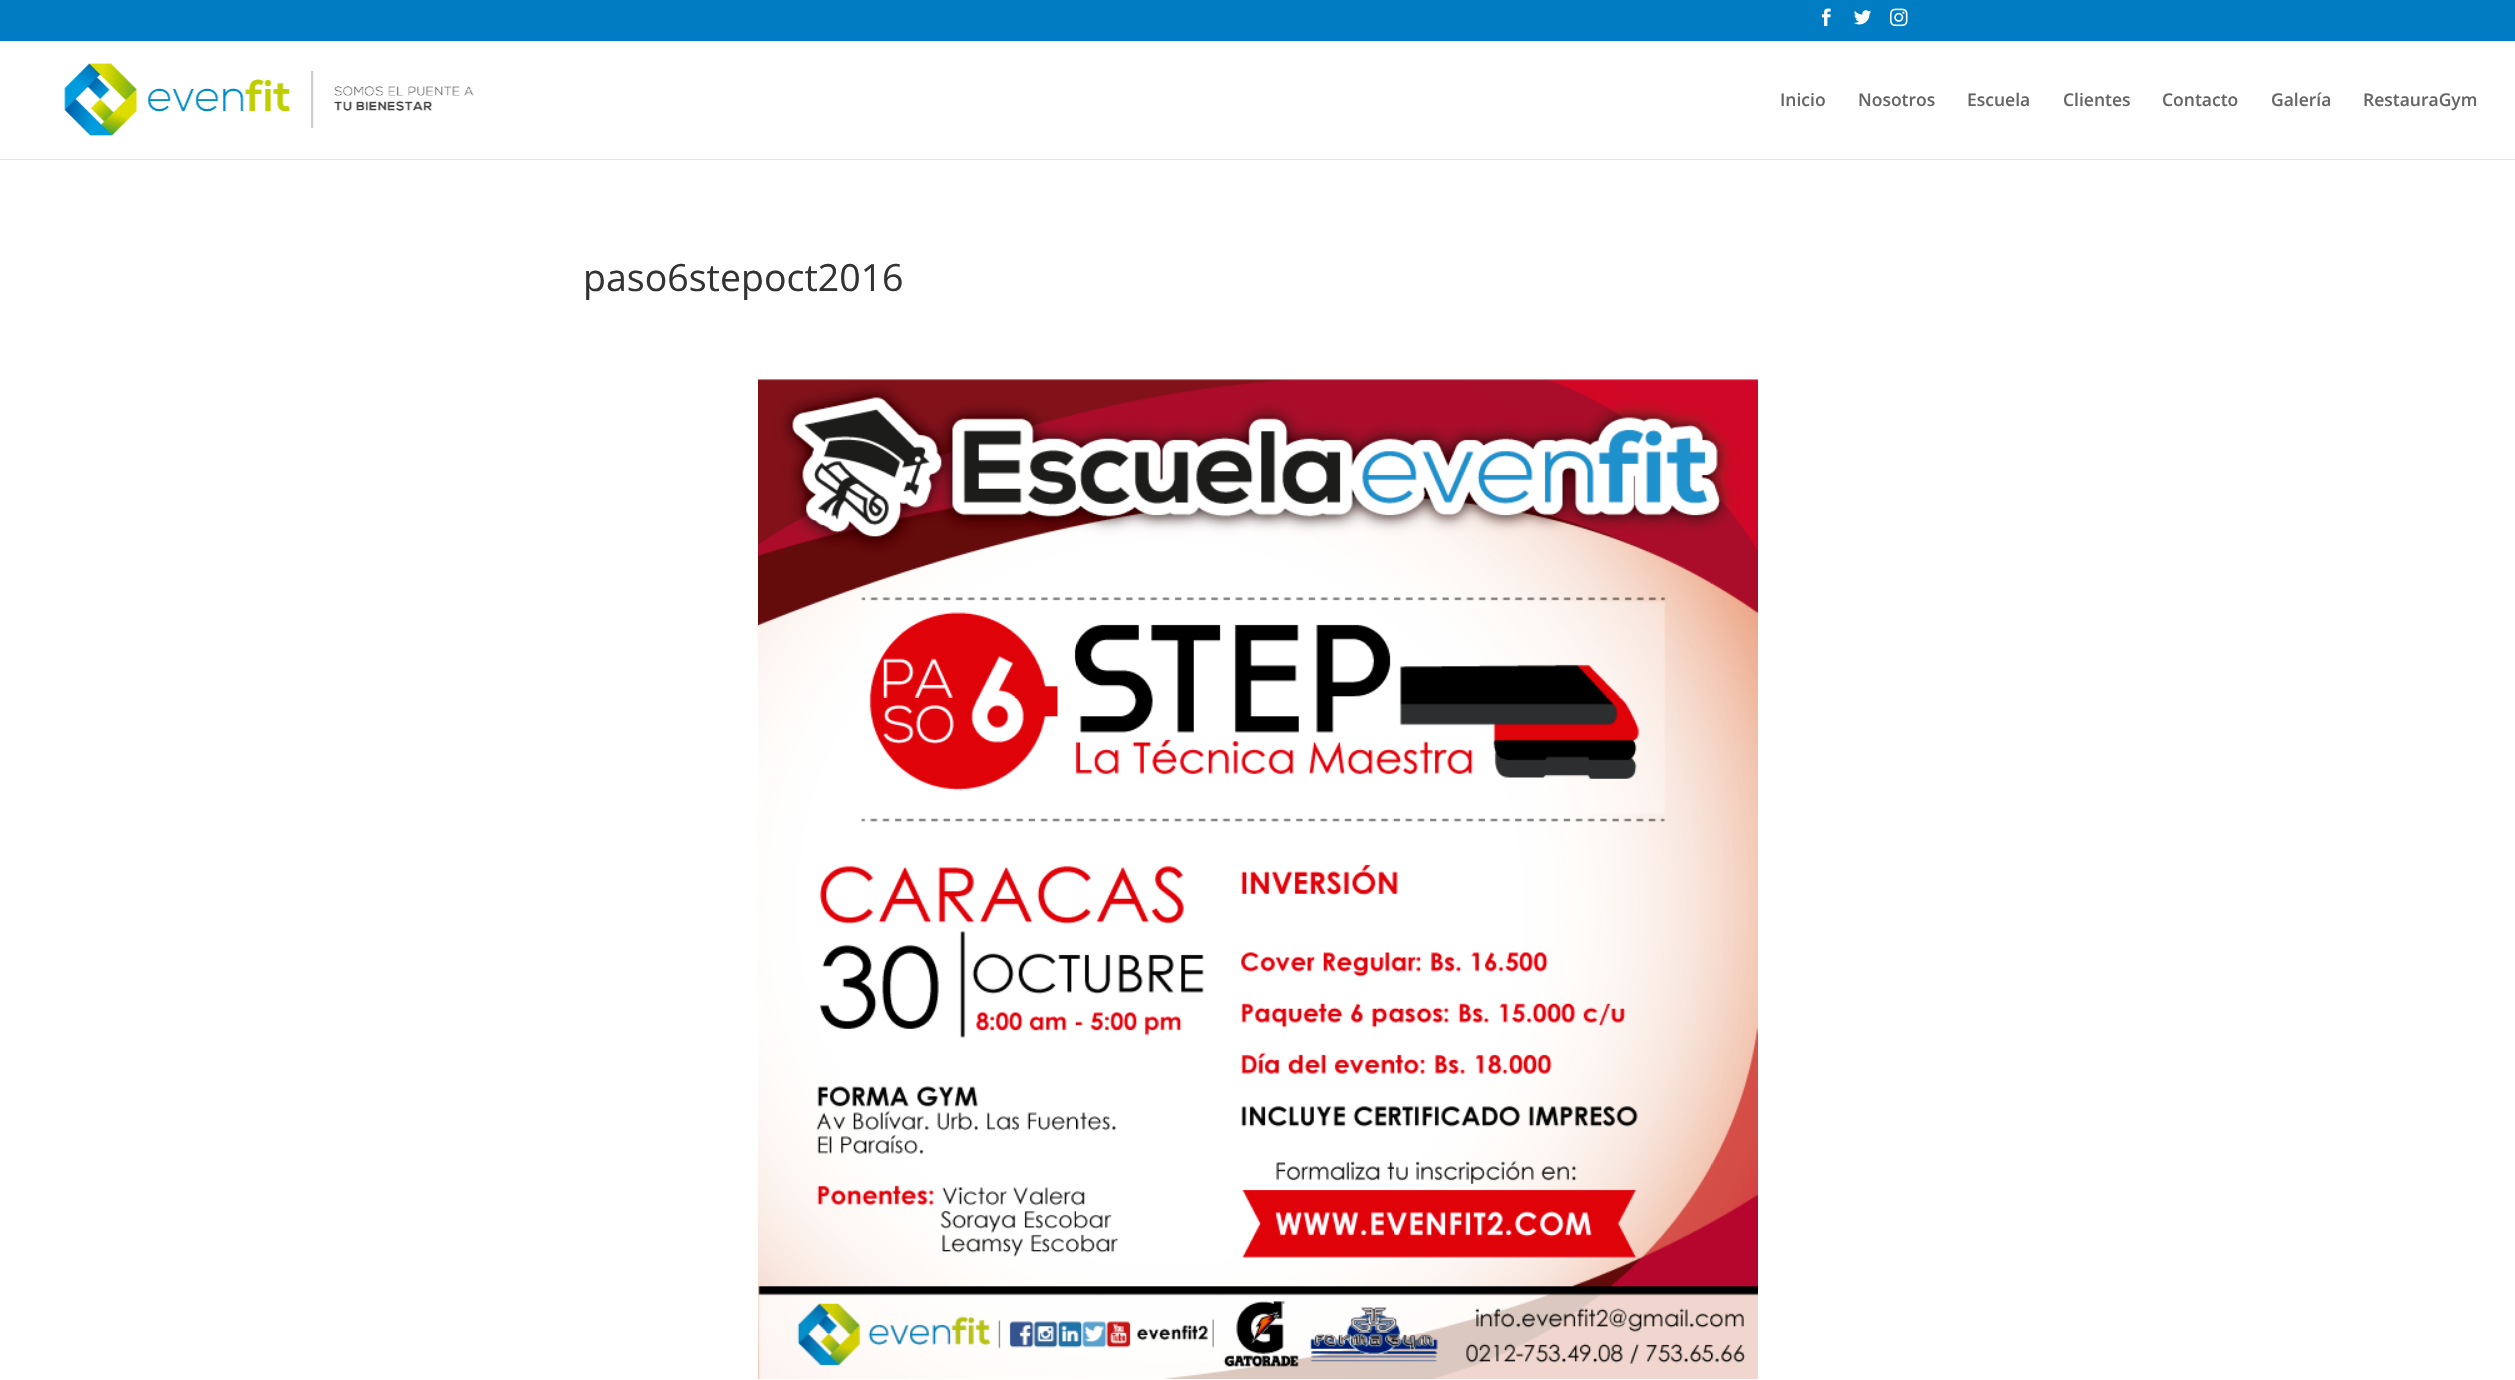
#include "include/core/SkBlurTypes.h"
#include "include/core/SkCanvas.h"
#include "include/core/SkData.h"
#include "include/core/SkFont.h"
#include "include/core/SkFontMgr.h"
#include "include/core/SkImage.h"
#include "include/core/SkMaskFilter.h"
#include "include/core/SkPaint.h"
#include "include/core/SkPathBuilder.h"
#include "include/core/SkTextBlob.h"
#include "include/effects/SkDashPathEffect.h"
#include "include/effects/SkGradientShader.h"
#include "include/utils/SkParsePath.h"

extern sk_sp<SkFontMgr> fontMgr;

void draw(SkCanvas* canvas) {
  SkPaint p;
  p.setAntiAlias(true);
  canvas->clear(SK_ColorWHITE);
  p.setColor(SkColorSetRGB(0, 125, 194));
  canvas->drawRect(SkRect::MakeLTRB(0, 0, 2515, 41), p);
  canvas->drawImageRect(SkImages::DeferredFromEncodedData(SkData::MakeFromFileName("images/1.png")), SkRect::MakeLTRB(1821, 8, 1831, 27), SkSamplingOptions());
  canvas->drawImageRect(SkImages::DeferredFromEncodedData(SkData::MakeFromFileName("images/2.png")), SkRect::MakeLTRB(1854, 10, 1871, 25), SkSamplingOptions());
  canvas->drawImageRect(SkImages::DeferredFromEncodedData(SkData::MakeFromFileName("images/3.png")), SkRect::MakeLTRB(1890, 8, 1908, 27), SkSamplingOptions());
  p.setColor(SkColorSetRGB(230, 230, 230));
  canvas->drawRect(SkRect::MakeLTRB(0, 159, 2515, 160), p);
  canvas->drawImageRect(SkImages::DeferredFromEncodedData(SkData::MakeFromFileName("images/4.png")), SkRect::MakeLTRB(64, 63, 474, 136), SkSamplingOptions());
  canvas->drawImageRect(SkImages::DeferredFromEncodedData(SkData::MakeFromFileName("images/5.png")), SkRect::MakeLTRB(758, 379, 1758, 1379), SkSamplingOptions());
  SkFont font1(fontMgr->matchFamilyStyle("Open Sans", SkFontStyle(600, SkFontStyle::kNormal_Width, SkFontStyle::kUpright_Slant)), 17.5f);
  font1.setSubpixel(true);
  p.setColor(SkColorSetRGB(102, 102, 102));
  canvas->drawString("Inicio", 1780, 106, font1, p);
  canvas->drawString("Nosotros", 1858, 106, font1, p);
  canvas->drawString("Escuela", 1967, 106, font1, p);
  canvas->drawString("Clientes", 2063, 106, font1, p);
  canvas->drawString("Contacto", 2162, 106, font1, p);
  canvas->drawString("Galería", 2271, 106, font1, p);
  canvas->drawString("RestauraGym", 2363, 106, font1, p);
  SkFont font2(fontMgr->matchFamilyStyle("Open Sans", SkFontStyle::Normal()), 37.5f);
  font2.setSubpixel(true);
  p.setColor(SkColorSetRGB(51, 51, 51));
  canvas->drawString("paso6stepoct2016", 583, 291, font2, p);
}
